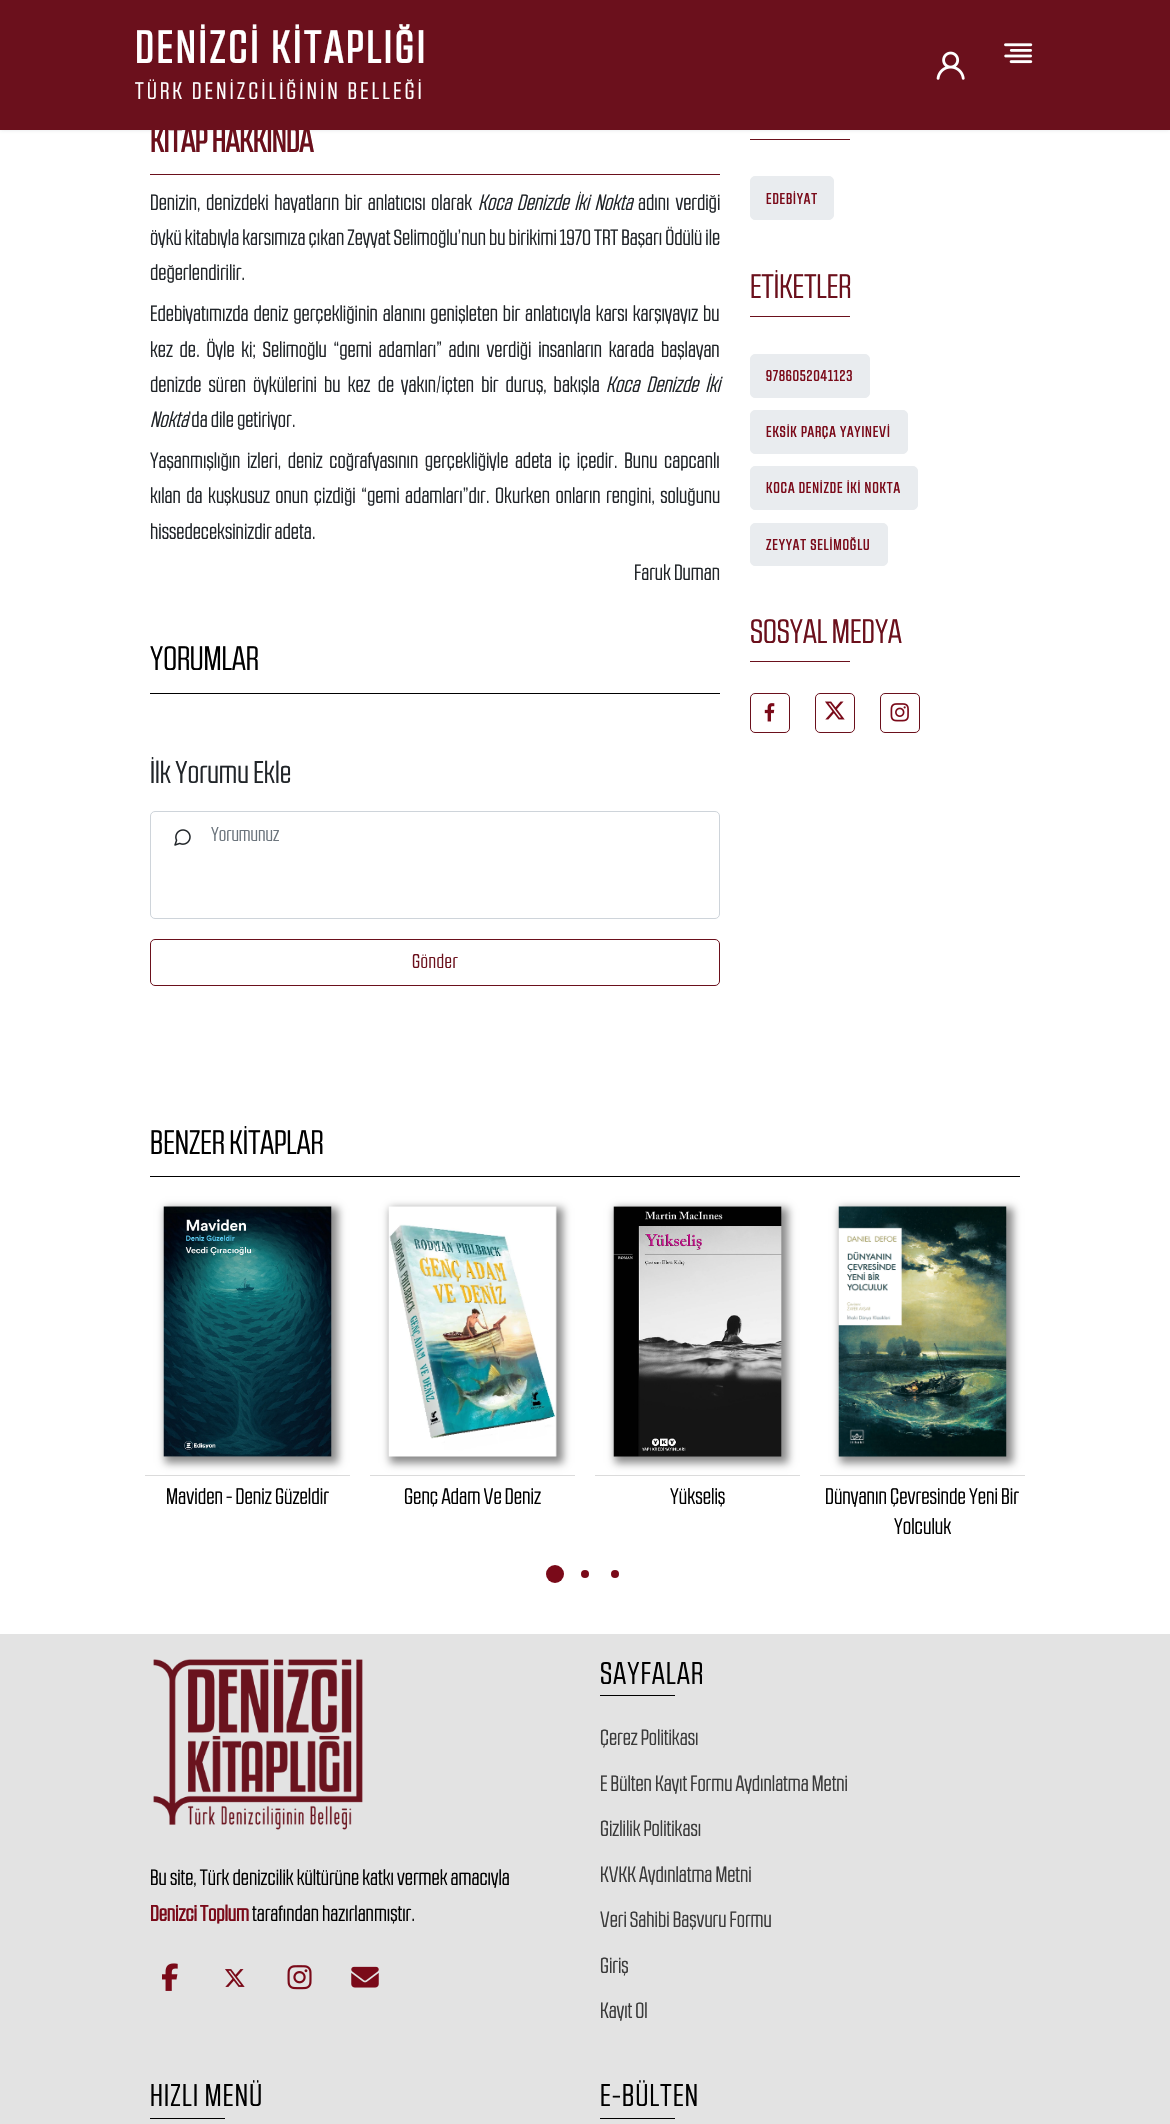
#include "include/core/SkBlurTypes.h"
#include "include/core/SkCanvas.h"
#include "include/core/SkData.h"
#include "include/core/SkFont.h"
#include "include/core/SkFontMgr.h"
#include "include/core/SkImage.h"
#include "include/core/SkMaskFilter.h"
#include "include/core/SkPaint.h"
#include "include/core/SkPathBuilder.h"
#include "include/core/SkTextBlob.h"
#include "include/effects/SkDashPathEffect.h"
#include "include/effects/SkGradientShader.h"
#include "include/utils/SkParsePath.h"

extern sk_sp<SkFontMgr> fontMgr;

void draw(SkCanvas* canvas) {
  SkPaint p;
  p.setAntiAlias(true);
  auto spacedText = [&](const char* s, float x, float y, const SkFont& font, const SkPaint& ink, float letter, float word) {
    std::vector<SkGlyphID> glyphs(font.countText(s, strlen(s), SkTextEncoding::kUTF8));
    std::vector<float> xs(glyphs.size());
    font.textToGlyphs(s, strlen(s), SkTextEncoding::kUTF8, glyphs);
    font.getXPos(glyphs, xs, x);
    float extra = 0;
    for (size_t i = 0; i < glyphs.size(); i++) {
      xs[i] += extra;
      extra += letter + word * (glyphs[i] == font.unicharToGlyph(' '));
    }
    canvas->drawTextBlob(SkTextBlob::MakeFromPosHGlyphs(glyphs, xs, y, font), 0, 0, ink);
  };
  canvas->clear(SK_ColorWHITE);
  p.setColor(SkColorSetARGB(38, 60, 72, 88));
  p.setMaskFilter(SkMaskFilter::MakeBlur(kNormal_SkBlurStyle, 2));
  canvas->drawRect(SkRect::MakeLTRB(0, 0, 1170, 130), p);
  p.setMaskFilter(nullptr);
  p.setColor(SkColorSetRGB(107, 16, 28));
  canvas->drawRect(SkRect::MakeLTRB(0, 0, 1170, 130), p);
  canvas->drawImageRect(SkImages::DeferredFromEncodedData(SkData::MakeFromFileName("images/1.png")), SkRect::MakeLTRB(936, 51, 965, 80), SkSamplingOptions());
  canvas->drawImageRect(SkImages::DeferredFromEncodedData(SkData::MakeFromFileName("images/2.png")), SkRect::MakeLTRB(1004, 43, 1033, 64), SkSamplingOptions());
  canvas->drawRect(SkRect::MakeLTRB(150, 174, 720, 175), p);
  p.setColor(SK_ColorBLACK);
  canvas->drawRect(SkRect::MakeLTRB(150, 693, 720, 694), p);
  p.setStyle(SkPaint::kStroke_Style);
  p.setStrokeWidth(1);
  p.setColor(SkColorSetRGB(206, 212, 218));
  canvas->drawRoundRect(SkRect::MakeLTRB(150.5f, 811.5f, 719.5f, 918.5f), 4.5f, 4.5f, p);
  canvas->drawImageRect(SkImages::DeferredFromEncodedData(SkData::MakeFromFileName("images/3.png")), SkRect::MakeLTRB(174, 829, 191, 846), SkSamplingOptions());
  p.setColor(SkColorSetRGB(107, 16, 28));
  canvas->drawRoundRect(SkRect::MakeLTRB(150.5f, 939.5f, 719.5f, 985.5f), 4.5f, 4.5f, p);
  p.setStyle(SkPaint::kFill_Style);
  canvas->drawRect(SkRect::MakeLTRB(750, 139, 850, 140), p);
  p.setColor(SkColorSetRGB(233, 236, 239));
  canvas->drawRoundRect(SkRect::MakeLTRB(750.5f, 176.5f, 833.5f, 219.5f), 4.5f, 4.5f, p);
  p.setStyle(SkPaint::kStroke_Style);
  canvas->drawRoundRect(SkRect::MakeLTRB(750.5f, 176.5f, 833.5f, 219.5f), 4.5f, 4.5f, p);
  p.setStyle(SkPaint::kFill_Style);
  p.setColor(SkColorSetRGB(107, 16, 28));
  canvas->drawRect(SkRect::MakeLTRB(750, 316, 850, 317), p);
  p.setColor(SkColorSetRGB(233, 236, 239));
  canvas->drawRoundRect(SkRect::MakeLTRB(750.5f, 354.5f, 869.5f, 397.5f), 4.5f, 4.5f, p);
  p.setStyle(SkPaint::kStroke_Style);
  canvas->drawRoundRect(SkRect::MakeLTRB(750.5f, 354.5f, 869.5f, 397.5f), 4.5f, 4.5f, p);
  p.setStyle(SkPaint::kFill_Style);
  canvas->drawRoundRect(SkRect::MakeLTRB(750.5f, 410.5f, 907.5f, 453.5f), 4.5f, 4.5f, p);
  p.setStyle(SkPaint::kStroke_Style);
  canvas->drawRoundRect(SkRect::MakeLTRB(750.5f, 410.5f, 907.5f, 453.5f), 4.5f, 4.5f, p);
  p.setStyle(SkPaint::kFill_Style);
  canvas->drawRoundRect(SkRect::MakeLTRB(750.5f, 466.5f, 917.5f, 509.5f), 4.5f, 4.5f, p);
  p.setStyle(SkPaint::kStroke_Style);
  canvas->drawRoundRect(SkRect::MakeLTRB(750.5f, 466.5f, 917.5f, 509.5f), 4.5f, 4.5f, p);
  p.setStyle(SkPaint::kFill_Style);
  canvas->drawRoundRect(SkRect::MakeLTRB(750.5f, 523.5f, 887.5f, 565.5f), 4.5f, 4.5f, p);
  p.setStyle(SkPaint::kStroke_Style);
  canvas->drawRoundRect(SkRect::MakeLTRB(750.5f, 523.5f, 887.5f, 565.5f), 4.5f, 4.5f, p);
  p.setStyle(SkPaint::kFill_Style);
  p.setColor(SkColorSetRGB(107, 16, 28));
  canvas->drawRect(SkRect::MakeLTRB(750, 661, 850, 662), p);
  p.setStyle(SkPaint::kStroke_Style);
  canvas->drawRoundRect(SkRect::MakeLTRB(750.5f, 693.5f, 789.5f, 732.5f), 4.5f, 4.5f, p);
  canvas->drawImageRect(SkImages::DeferredFromEncodedData(SkData::MakeFromFileName("images/4.png")), SkRect::MakeLTRB(764, 703, 775, 722), SkSamplingOptions());
  canvas->drawRoundRect(SkRect::MakeLTRB(815.5f, 693.5f, 854.5f, 732.5f), 4.5f, 4.5f, p);
  canvas->drawImageRect(SkImages::DeferredFromEncodedData(SkData::MakeFromFileName("images/5.png")), SkRect::MakeLTRB(825, 701, 845, 720), SkSamplingOptions());
  canvas->drawRoundRect(SkRect::MakeLTRB(880.5f, 693.5f, 919.5f, 732.5f), 4.5f, 4.5f, p);
  canvas->drawImageRect(SkImages::DeferredFromEncodedData(SkData::MakeFromFileName("images/6.png")), SkRect::MakeLTRB(890, 703, 909, 722), SkSamplingOptions());
  p.setStyle(SkPaint::kFill_Style);
  p.setColor(SK_ColorBLACK);
  canvas->drawRect(SkRect::MakeLTRB(150, 1176, 1020, 1177), p);
  p.setColor(SkColorSetRGB(138, 138, 138));
  p.setMaskFilter(SkMaskFilter::MakeBlur(kNormal_SkBlurStyle, 4));
  canvas->drawRect(SkRect::MakeLTRB(165, 1208, 338, 1463), p);
  p.setMaskFilter(nullptr);
  canvas->drawImageRect(SkImages::DeferredFromEncodedData(SkData::MakeFromFileName("images/7.png")), SkRect::MakeLTRB(163, 1206, 332, 1457), SkSamplingOptions());
  p.setColor(SkColorSetRGB(219, 219, 219));
  canvas->drawRect(SkRect::MakeLTRB(145, 1475, 350, 1476), p);
  p.setColor(SkColorSetRGB(138, 138, 138));
  p.setMaskFilter(SkMaskFilter::MakeBlur(kNormal_SkBlurStyle, 4));
  canvas->drawRect(SkRect::MakeLTRB(390, 1208, 563, 1463), p);
  p.setMaskFilter(nullptr);
  canvas->drawImageRect(SkImages::DeferredFromEncodedData(SkData::MakeFromFileName("images/8.png")), SkRect::MakeLTRB(388, 1206, 557, 1457), SkSamplingOptions());
  p.setColor(SkColorSetRGB(219, 219, 219));
  canvas->drawRect(SkRect::MakeLTRB(370, 1475, 575, 1476), p);
  p.setColor(SkColorSetRGB(138, 138, 138));
  p.setMaskFilter(SkMaskFilter::MakeBlur(kNormal_SkBlurStyle, 4));
  canvas->drawRect(SkRect::MakeLTRB(615, 1208, 788, 1463), p);
  p.setMaskFilter(nullptr);
  canvas->drawImageRect(SkImages::DeferredFromEncodedData(SkData::MakeFromFileName("images/9.png")), SkRect::MakeLTRB(613, 1206, 782, 1457), SkSamplingOptions());
  p.setColor(SkColorSetRGB(219, 219, 219));
  canvas->drawRect(SkRect::MakeLTRB(595, 1475, 800, 1476), p);
  p.setColor(SkColorSetRGB(138, 138, 138));
  p.setMaskFilter(SkMaskFilter::MakeBlur(kNormal_SkBlurStyle, 4));
  canvas->drawRect(SkRect::MakeLTRB(840, 1208, 1013, 1463), p);
  p.setMaskFilter(nullptr);
  canvas->drawImageRect(SkImages::DeferredFromEncodedData(SkData::MakeFromFileName("images/10.png")), SkRect::MakeLTRB(838, 1206, 1007, 1457), SkSamplingOptions());
  p.setColor(SkColorSetRGB(219, 219, 219));
  canvas->drawRect(SkRect::MakeLTRB(820, 1475, 1025, 1476), p);
  p.setColor(SkColorSetRGB(122, 10, 25));
  canvas->drawCircle(555, 1574, 9, p);
  canvas->drawCircle(585, 1574, 4, p);
  canvas->drawCircle(615, 1574, 4, p);
  p.setColor(SkColorSetRGB(227, 227, 227));
  canvas->drawRect(SkRect::MakeLTRB(0, 1634, 1170, 2124), p);
  canvas->drawImageRect(SkImages::DeferredFromEncodedData(SkData::MakeFromFileName("images/11.png")), SkRect::MakeLTRB(153, 1659, 363, 1830), SkSamplingOptions());
  canvas->drawImageRect(SkImages::DeferredFromEncodedData(SkData::MakeFromFileName("images/12.png")), SkRect::MakeLTRB(162, 1963, 178, 1991), SkSamplingOptions());
  canvas->drawImageRect(SkImages::DeferredFromEncodedData(SkData::MakeFromFileName("images/13.png")), SkRect::MakeLTRB(225, 1969, 245, 1987), SkSamplingOptions());
  canvas->drawImageRect(SkImages::DeferredFromEncodedData(SkData::MakeFromFileName("images/14.png")), SkRect::MakeLTRB(287, 1965, 312, 1990), SkSamplingOptions());
  canvas->drawImageRect(SkImages::DeferredFromEncodedData(SkData::MakeFromFileName("images/15.png")), SkRect::MakeLTRB(351, 1966, 379, 1988), SkSamplingOptions());
  p.setColor(SK_ColorBLACK);
  canvas->drawRect(SkRect::MakeLTRB(600, 1695, 675, 1696), p);
  canvas->drawRect(SkRect::MakeLTRB(150, 2118, 225, 2119), p);
  canvas->drawRect(SkRect::MakeLTRB(600, 2118, 675, 2119), p);
  SkFont font1(fontMgr->matchFamilyStyle("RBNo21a", SkFontStyle::Bold()), 45);
  font1.setSubpixel(true);
  p.setColor(SK_ColorWHITE);
  spacedText("DENİZCİ KİTAPLIĞI", 135, 63, font1, p, 3.75f, 0);
  SkFont font2(fontMgr->matchFamilyStyle("RBNo21a", SkFontStyle::Normal()), 23.75f);
  font2.setSubpixel(true);
  spacedText("TÜRK DENİZCİLİĞİNİN BELLEĞİ", 135, 99, font2, p, 3.4f, 0);
  SkFont font3(fontMgr->matchFamilyStyle("RBNo21a", SkFontStyle::Bold()), 33.75f);
  font3.setSubpixel(true);
  p.setColor(SkColorSetRGB(107, 16, 28));
  canvas->drawString("KİTAP HAKKINDA", 150, 152, font3, p);
  SkFont font4(fontMgr->matchFamilyStyle("RBNo21a", SkFontStyle::Normal()), 22);
  font4.setSubpixel(true);
  p.setColor(SkColorSetRGB(33, 37, 41));
  spacedText("Denizin, denizdeki hayatların bir anlatıcısı olarak", 150, 210, font4, p, 0, 2.5f);
  SkFont font5(fontMgr->matchFamilyStyle("RBNo21a", SkFontStyle::Italic()), 22);
  font5.setSubpixel(true);
  spacedText("Koca Denizde İki Nokta", 478, 210, font5, p, 0, 2.5f);
  spacedText("adını verdiği", 638, 210, font4, p, 0, 3);
  canvas->drawString("öykü kitabıyla karsımıza çıkan Zeyyat Selimoğlu’nun bu birikimi 1970 TRT Başarı Ödülü ile", 150, 245, font4, p);
  canvas->drawString("değerlendirilir.", 150, 280, font4, p);
  spacedText("Edebiyatımızda deniz gerçekliğinin alanını genişleten bir anlatıcıyla karsı karşıyayız bu", 150, 321, font4, p, 0, 1.75f);
  spacedText("kez de. Öyle ki; Selimoğlu “gemi adamları” adını verdiği insanların karada başlayan", 150, 357, font4, p, 0, 3.6f);
  spacedText("denizde süren öykülerini bu kez de yakın/içten bir duruş, bakışla", 150, 392, font4, p, 0, 4);
  spacedText("Koca Denizde İki", 606, 392, font5, p, 0, 4);
  canvas->drawString("Nokta", 150, 427, font5, p);
  canvas->drawString("’da dile getiriyor.", 188, 427, font4, p);
  spacedText("Yaşanmışlığın izleri, deniz coğrafyasının gerçekliğiyle adeta iç içedir. Bunu capcanlı", 150, 468, font4, p, 0, 3.5f);
  spacedText("kılan da kuşkusuz onun çizdiği “gemi adamları”dır. Okurken onların rengini, soluğunu", 150, 503, font4, p, 0, 2.4f);
  canvas->drawString("hissedeceksinizdir adeta.", 150, 539, font4, p);
  canvas->drawString("Faruk Duman", 634, 580, font4, p);
  SkFont font6(fontMgr->matchFamilyStyle("RBNo21a", SkFontStyle::Normal()), 33.75f);
  font6.setSubpixel(true);
  p.setColor(SK_ColorBLACK);
  canvas->drawString("YORUMLAR", 150, 670, font6, p);
  SkFont font7(fontMgr->matchFamilyStyle("RBNo21a", SkFontStyle::Normal()), 31.25f);
  font7.setSubpixel(true);
  p.setColor(SkColorSetRGB(33, 37, 41));
  canvas->drawString("İlk Yorumu Ekle", 150, 783, font7, p);
  SkFont font8(fontMgr->matchFamilyStyle("RBNo21a", SkFontStyle::Normal()), 20);
  font8.setSubpixel(true);
  p.setColor(SkColorSetRGB(108, 117, 125));
  canvas->drawString("Yorumunuz", 211, 841, font8, p);
  p.setColor(SkColorSetRGB(107, 16, 28));
  spacedText("Gönder", 412, 968, font8, p, 0.5f, 0);
  SkFont font9(fontMgr->matchFamilyStyle("RBNo21a", SkFontStyle::Bold()), 15);
  font9.setSubpixel(true);
  p.setColor(SkColorSetRGB(122, 10, 25));
  spacedText("EDEBİYAT", 766, 204, font9, p, 1.25f, 0);
  p.setColor(SkColorSetRGB(107, 16, 28));
  canvas->drawString("ETİKETLER", 750, 298, font6, p);
  p.setColor(SkColorSetRGB(122, 10, 25));
  spacedText("9786052041123", 766, 381, font9, p, 1.25f, 0);
  spacedText("EKSİK PARÇA YAYINEVİ", 766, 437, font9, p, 1.25f, 0);
  spacedText("KOCA DENİZDE İKİ NOKTA", 766, 493, font9, p, 1.25f, 0);
  spacedText("ZEYYAT SELİMOĞLU", 766, 550, font9, p, 1.25f, 0);
  p.setColor(SkColorSetRGB(107, 16, 28));
  canvas->drawString("SOSYAL MEDYA", 750, 643, font6, p);
  p.setColor(SK_ColorBLACK);
  canvas->drawString("BENZER KİTAPLAR", 150, 1154, font6, p);
  SkFont font10(fontMgr->matchFamilyStyle("RBNo21a", SkFontStyle::Normal()), 22.5f);
  font10.setSubpixel(true);
  canvas->drawString("Maviden - Deniz Güzeldir", 166, 1504, font10, p);
  canvas->drawString("Genç Adam Ve Deniz", 404, 1504, font10, p);
  canvas->drawString("Yükseliş", 670, 1504, font10, p);
  canvas->drawString("Dünyanın Çevresinde Yeni Bir", 825, 1504, font10, p);
  canvas->drawString("Yolculuk", 894, 1534, font10, p);
  canvas->drawString("Bu site, Türk denizcilik kültürüne katkı vermek amacıyla", 150, 1885, font4, p);
  SkFont font11(fontMgr->matchFamilyStyle("RBNo21a", SkFontStyle::Bold()), 22);
  font11.setSubpixel(true);
  p.setColor(SkColorSetRGB(122, 10, 25));
  canvas->drawString("Denizci Toplum", 150, 1921, font11, p);
  p.setColor(SK_ColorBLACK);
  canvas->drawString("tarafından hazırlanmıştır.", 252, 1921, font4, p);
  spacedText("SAYFALAR", 600, 1684, font7, p, 1.25f, 0);
  p.setColor(SkColorSetRGB(58, 58, 58));
  canvas->drawString("Çerez Politikası", 600, 1745, font4, p);
  canvas->drawString("E Bülten Kayıt Formu Aydınlatma Metni", 600, 1791, font4, p);
  canvas->drawString("Gizlilik Politikası", 600, 1836, font4, p);
  canvas->drawString("KVKK Aydınlatma Metni", 600, 1882, font4, p);
  canvas->drawString("Veri Sahibi Başvuru Formu", 600, 1927, font4, p);
  canvas->drawString("Giriş", 600, 1973, font4, p);
  canvas->drawString("Kayıt Ol", 600, 2018, font4, p);
  p.setColor(SK_ColorBLACK);
  spacedText("HIZLI MENÜ", 150, 2106, font7, p, 1.25f, 0);
  spacedText("E-BÜLTEN", 600, 2106, font7, p, 1.25f, 0);
}
